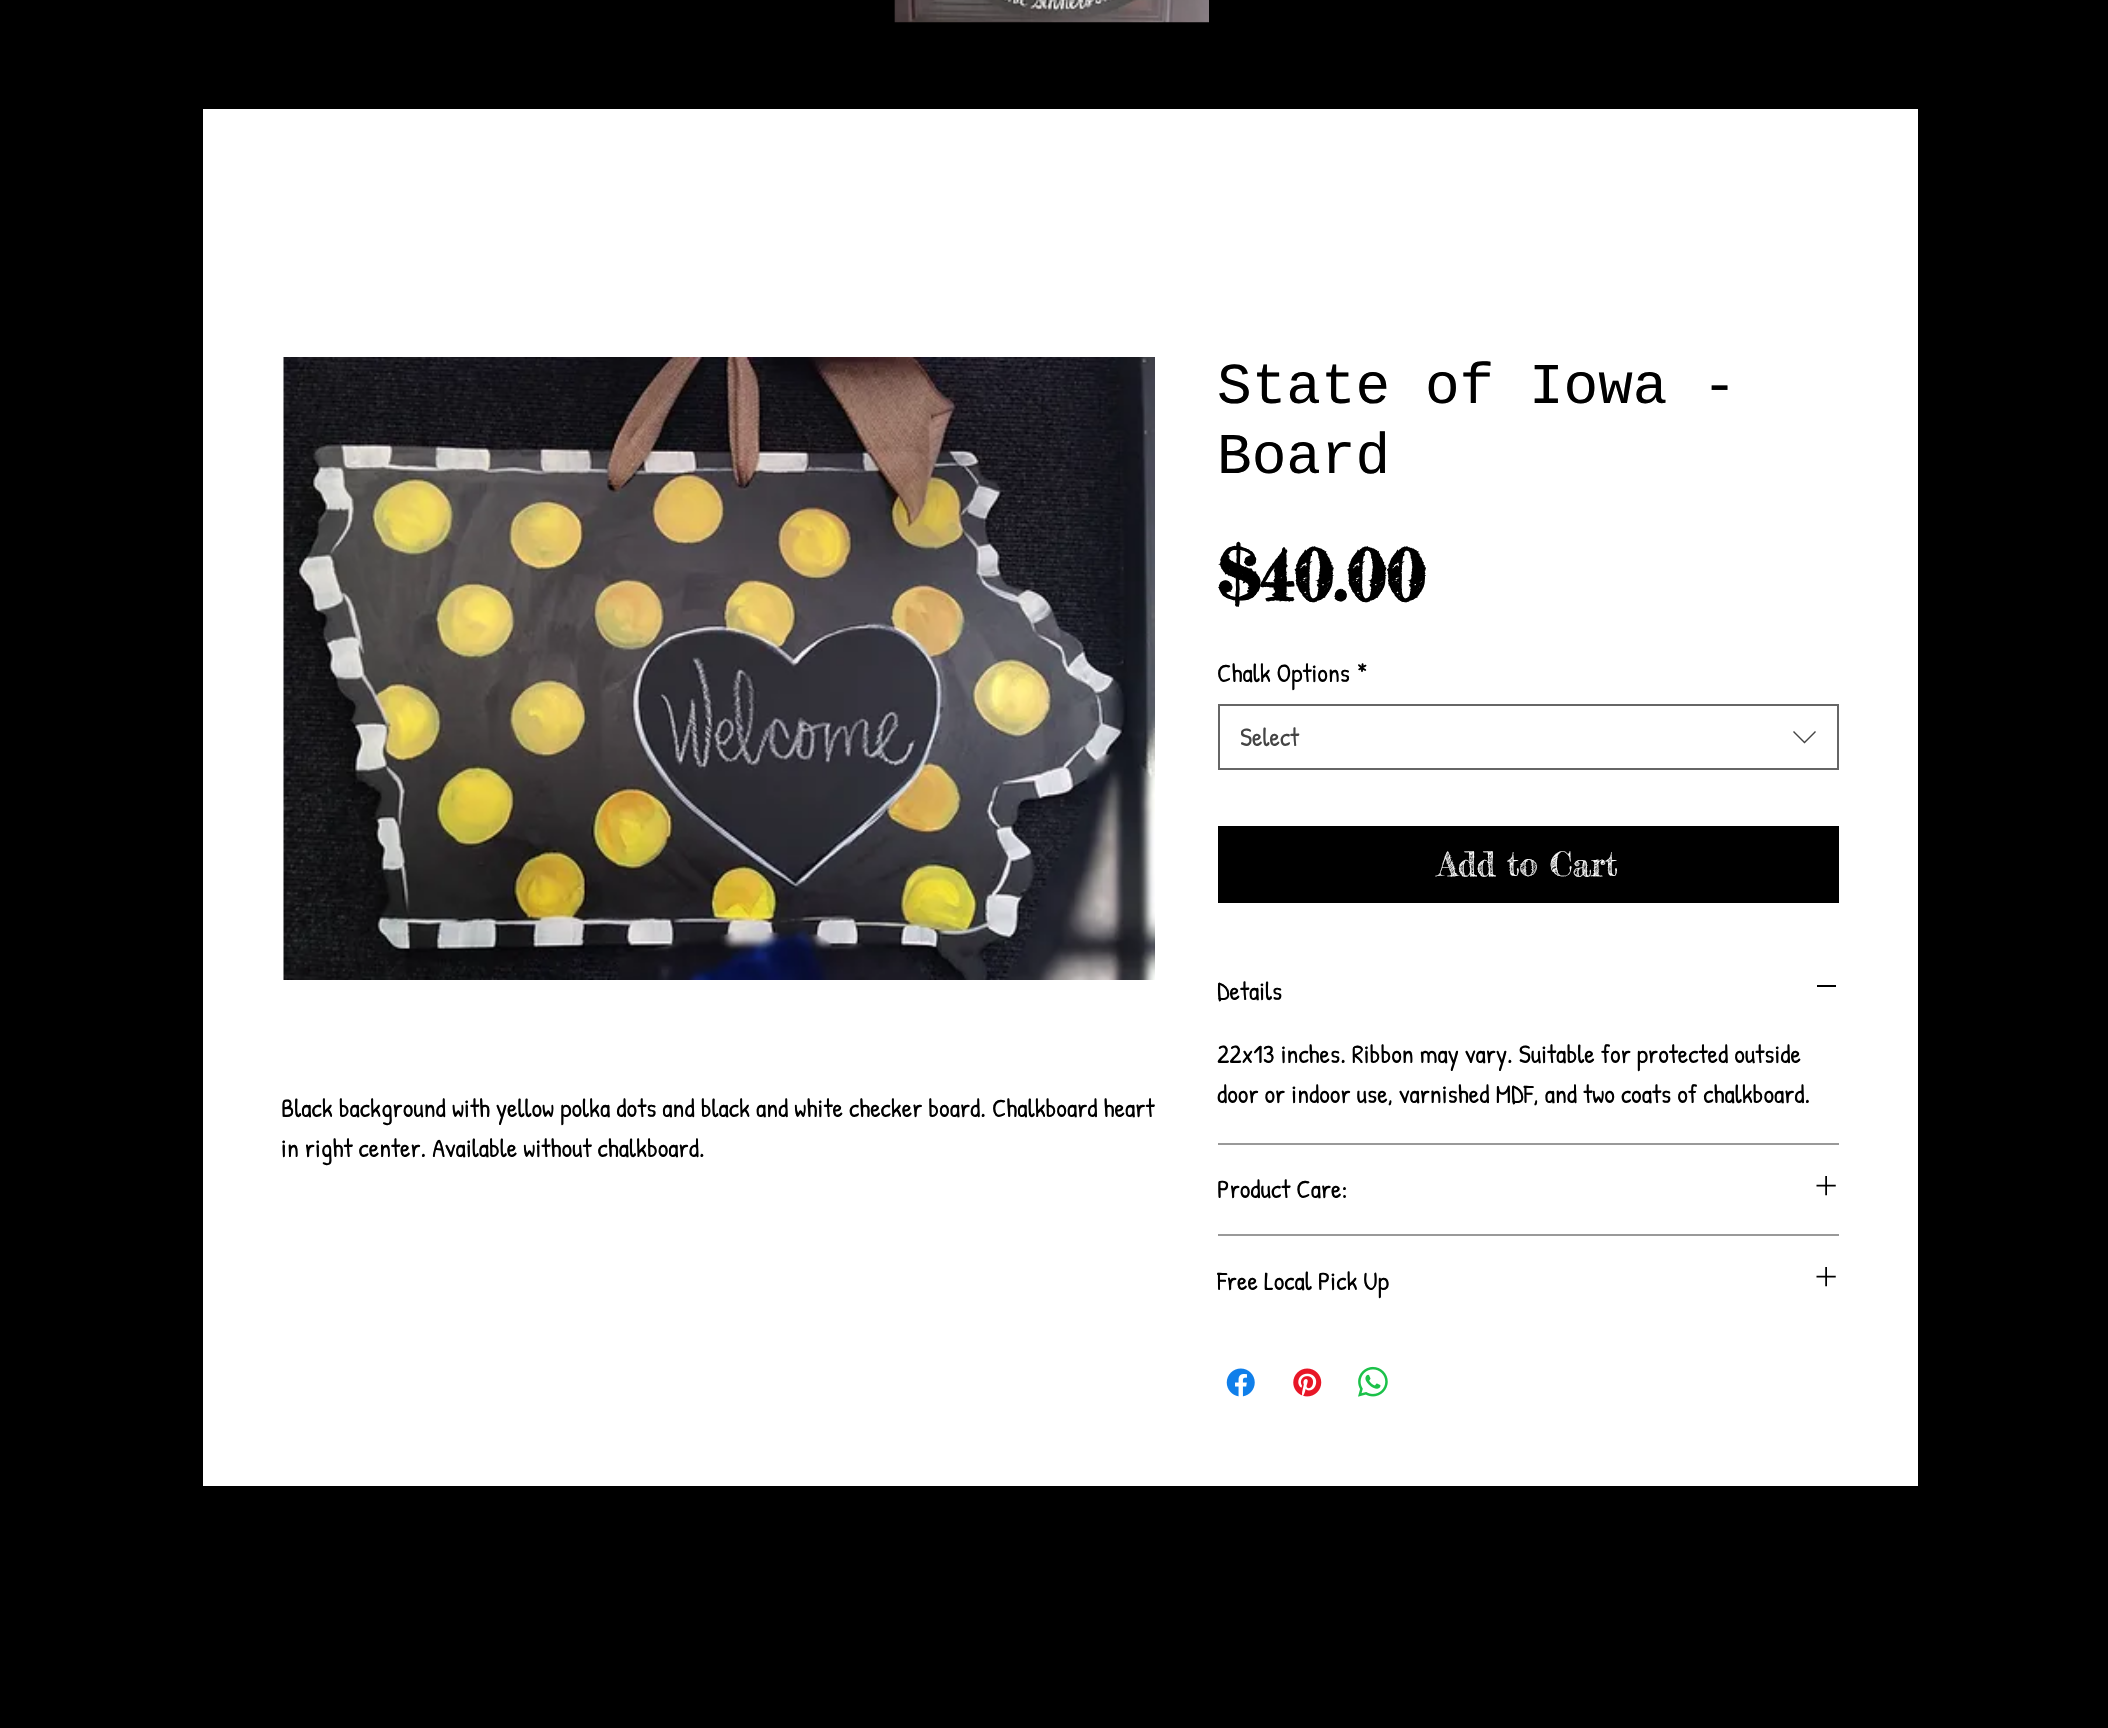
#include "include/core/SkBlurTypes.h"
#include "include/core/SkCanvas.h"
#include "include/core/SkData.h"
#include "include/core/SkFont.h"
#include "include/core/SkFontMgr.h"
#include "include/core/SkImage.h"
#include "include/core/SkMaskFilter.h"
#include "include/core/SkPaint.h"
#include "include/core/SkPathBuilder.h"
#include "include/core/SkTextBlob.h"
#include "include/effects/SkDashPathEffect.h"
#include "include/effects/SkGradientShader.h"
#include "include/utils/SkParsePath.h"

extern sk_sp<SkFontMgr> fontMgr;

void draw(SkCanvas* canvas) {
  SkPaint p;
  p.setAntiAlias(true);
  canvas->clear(SK_ColorBLACK);
  canvas->drawImageRect(SkImages::DeferredFromEncodedData(SkData::MakeFromFileName("images/1.png")), SkRect::MakeLTRB(894, 0, 1209, 23), SkSamplingOptions());
  p.setColor(SK_ColorWHITE);
  canvas->drawRect(SkRect::MakeLTRB(203, 109, 1918, 1486), p);
  canvas->drawImageRect(SkImages::DeferredFromEncodedData(SkData::MakeFromFileName("images/2.png")), SkRect::MakeLTRB(283, 357, 1155, 980), SkSamplingOptions());
  p.setStyle(SkPaint::kStroke_Style);
  p.setStrokeWidth(2);
  p.setColor(SkColorSetRGB(102, 102, 102));
  canvas->drawRect(SkRect::MakeLTRB(1219, 705, 1838, 769), p);
  p.setStyle(SkPaint::kFill_Style);
  p.setColor(SkColorSetRGB(68, 68, 68));
  canvas->drawPath(SkPathBuilder(SkPathFillType::kEvenOdd).moveTo(1815, 731).lineTo(1816, 732).lineTo(1804.5f, 743.5f).lineTo(1793, 732).lineTo(1794, 731).lineTo(1804.5f, 741.5f).close().detach(), p);
  p.setColor(SK_ColorBLACK);
  canvas->drawRect(SkRect::MakeLTRB(1218, 826, 1839, 903), p);
  p.setColor(SkColorSetRGB(153, 153, 153));
  canvas->drawRect(SkRect::MakeLTRB(1218, 1143, 1839, 1145), p);
  p.setColor(SK_ColorBLACK);
  canvas->drawRect(SkRect::MakeLTRB(1817, 985, 1836, 987), p);
  p.setColor(SkColorSetRGB(153, 153, 153));
  canvas->drawRect(SkRect::MakeLTRB(1218, 1234, 1839, 1236), p);
  canvas->drawImageRect(SkImages::DeferredFromEncodedData(SkData::MakeFromFileName("images/3.png")), SkRect::MakeLTRB(1816, 1176, 1836, 1196), SkSamplingOptions());
  canvas->drawImageRect(SkImages::DeferredFromEncodedData(SkData::MakeFromFileName("images/3.png")), SkRect::MakeLTRB(1816, 1267, 1836, 1287), SkSamplingOptions());
  canvas->drawImageRect(SkImages::DeferredFromEncodedData(SkData::MakeFromFileName("images/4.png")), SkRect::MakeLTRB(1226, 1368, 1255, 1397), SkSamplingOptions());
  canvas->drawImageRect(SkImages::DeferredFromEncodedData(SkData::MakeFromFileName("images/5.png")), SkRect::MakeLTRB(1293, 1368, 1322, 1397), SkSamplingOptions());
  canvas->drawImageRect(SkImages::DeferredFromEncodedData(SkData::MakeFromFileName("images/6.png")), SkRect::MakeLTRB(1358, 1366, 1388, 1397), SkSamplingOptions());
  SkFont font1(fontMgr->matchFamilyStyle("Patrick Hand", SkFontStyle::Normal()), 26.25f);
  font1.setSubpixel(true);
  p.setColor(SK_ColorBLACK);
  canvas->drawString("Black background with yellow polka dots and black and white checker board. Chalkboard heart", 281, 1117, font1, p);
  canvas->drawString("in right center. Available without chalkboard.", 281, 1157, font1, p);
  SkFont font2(fontMgr->matchFamilyStyle("Liberation Mono", SkFontStyle::Normal()), 57.75f);
  font2.setSubpixel(true);
  canvas->drawString("State of Iowa -", 1217, 403, font2, p);
  canvas->drawString("Board", 1217, 473, font2, p);
  SkFont font3(fontMgr->matchFamilyStyle("Fredericka the Great", SkFontStyle::Bold()), 70);
  font3.setSubpixel(true);
  canvas->drawString("$40.00", 1217, 601, font3, p);
  canvas->drawString("Chalk Options", 1217, 682, font1, p);
  canvas->drawString("*", 1357, 682, font1, p);
  canvas->save();
  canvas->clipRect(SkRect::MakeLTRB(1241, 719, 1778, 754));
  p.setColor(SkColorSetRGB(68, 68, 68));
  canvas->drawString("Select", 1240, 746, font1, p);
  canvas->restore();
  SkFont font4(fontMgr->matchFamilyStyle("Fredericka the Great", SkFontStyle::Normal()), 33.25f);
  font4.setSubpixel(true);
  p.setColor(SK_ColorWHITE);
  canvas->drawString("Add to Cart", 1438, 876, font4, p);
  p.setColor(SK_ColorBLACK);
  canvas->drawString("Details", 1217, 1000, font1, p);
  canvas->drawString("22x13 inches. Ribbon may vary. Suitable for protected outside", 1217, 1063, font1, p);
  canvas->drawString("door or indoor use, varnished MDF, and two coats of chalkboard.", 1217, 1103, font1, p);
  canvas->drawString("Product Care:", 1217, 1198, font1, p);
  canvas->drawString("Free Local Pick Up", 1217, 1290, font1, p);
}
